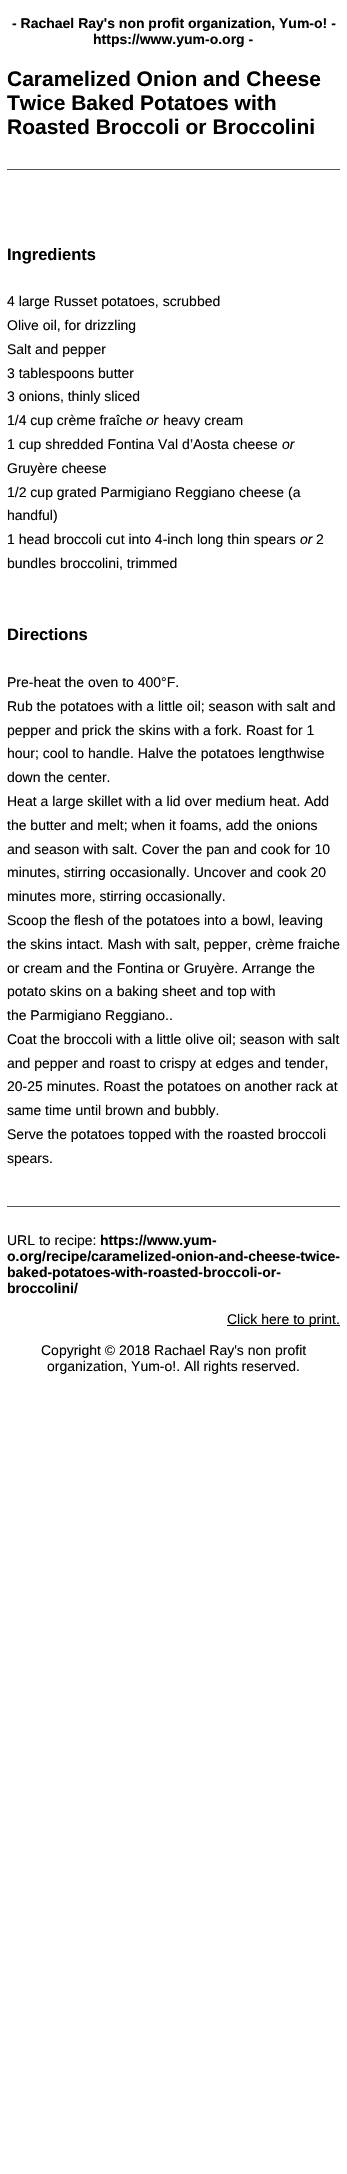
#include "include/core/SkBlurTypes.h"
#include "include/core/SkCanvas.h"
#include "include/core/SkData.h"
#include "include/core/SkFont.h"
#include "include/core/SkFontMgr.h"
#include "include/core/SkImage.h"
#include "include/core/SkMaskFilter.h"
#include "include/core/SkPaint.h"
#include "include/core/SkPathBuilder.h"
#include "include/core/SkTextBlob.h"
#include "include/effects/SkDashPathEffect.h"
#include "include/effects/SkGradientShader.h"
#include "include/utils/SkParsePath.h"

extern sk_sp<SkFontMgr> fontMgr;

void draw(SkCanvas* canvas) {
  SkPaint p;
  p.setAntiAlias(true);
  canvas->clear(SK_ColorWHITE);
  p.setColor(SkColorSetRGB(85, 85, 85));
  canvas->drawRect(SkRect::MakeLTRB(7, 169, 340, 170), p);
  canvas->drawRect(SkRect::MakeLTRB(7, 1206, 340, 1207), p);
  p.setColor(SK_ColorBLACK);
  canvas->drawRect(SkRect::MakeLTRB(227, 1325, 340, 1326), p);
  SkFont font1(fontMgr->matchFamilyStyle("Liberation Sans", SkFontStyle::Bold()), 14);
  font1.setSubpixel(true);
  canvas->drawString("- Rachael Ray's non profit organization, Yum-o! -", 12, 28, font1, p);
  canvas->drawString("https://www.yum-o.org -", 93, 44, font1, p);
  SkFont font2(fontMgr->matchFamilyStyle("Liberation Sans", SkFontStyle::Bold()), 21);
  font2.setSubpixel(true);
  canvas->drawString("Caramelized Onion and Cheese", 7, 86, font2, p);
  canvas->drawString("Twice Baked Potatoes with", 7, 110, font2, p);
  canvas->drawString("Roasted Broccoli or Broccolini", 7, 134, font2, p);
  SkFont font3(fontMgr->matchFamilyStyle("Liberation Sans", SkFontStyle::Bold()), 16.5f);
  font3.setSubpixel(true);
  canvas->drawString("Ingredients", 7, 260, font3, p);
  SkFont font4(fontMgr->matchFamilyStyle("Liberation Sans", SkFontStyle::Normal()), 14);
  font4.setSubpixel(true);
  canvas->drawString("4 large Russet potatoes, scrubbed", 7, 306, font4, p);
  canvas->drawString("Olive oil, for drizzling", 7, 330, font4, p);
  canvas->drawString("Salt and pepper", 7, 354, font4, p);
  canvas->drawString("3 tablespoons butter", 7, 378, font4, p);
  canvas->drawString("3 onions, thinly sliced", 7, 401, font4, p);
  canvas->drawString("1/4 cup crème fraîche", 7, 425, font4, p);
  SkFont font5(fontMgr->matchFamilyStyle("Liberation Sans", SkFontStyle::Italic()), 14);
  font5.setSubpixel(true);
  canvas->drawString("or", 146, 425, font5, p);
  canvas->drawString("heavy cream", 163, 425, font4, p);
  canvas->drawString("1 cup shredded Fontina Val d’Aosta cheese", 7, 449, font4, p);
  canvas->drawString("or", 282, 449, font5, p);
  canvas->drawString("Gruyère cheese", 7, 473, font4, p);
  canvas->drawString("1/2 cup grated Parmigiano Reggiano cheese (a", 7, 497, font4, p);
  canvas->drawString("handful)", 7, 520, font4, p);
  canvas->drawString("1 head broccoli cut into 4-inch long thin spears", 7, 544, font4, p);
  canvas->drawString("or", 300, 544, font5, p);
  canvas->drawString("2", 316, 544, font4, p);
  canvas->drawString("bundles broccolini, trimmed", 7, 568, font4, p);
  canvas->drawString("Directions", 7, 640, font3, p);
  canvas->drawString("Pre-heat the oven to 400°F.", 7, 687, font4, p);
  canvas->drawString("Rub the potatoes with a little oil; season with salt and", 7, 711, font4, p);
  canvas->drawString("pepper and prick the skins with a fork. Roast for 1", 7, 735, font4, p);
  canvas->drawString("hour; cool to handle. Halve the potatoes lengthwise", 7, 758, font4, p);
  canvas->drawString("down the center.", 7, 782, font4, p);
  canvas->drawString("Heat a large skillet with a lid over medium heat. Add", 7, 806, font4, p);
  canvas->drawString("the butter and melt; when it foams, add the onions", 7, 830, font4, p);
  canvas->drawString("and season with salt. Cover the pan and cook for 10", 7, 854, font4, p);
  canvas->drawString("minutes, stirring occasionally. Uncover and cook 20", 7, 877, font4, p);
  canvas->drawString("minutes more, stirring occasionally.", 7, 901, font4, p);
  canvas->drawString("Scoop the flesh of the potatoes into a bowl, leaving", 7, 925, font4, p);
  canvas->drawString("the skins intact. Mash with salt, pepper, crème fraiche", 7, 949, font4, p);
  canvas->drawString("or cream and the Fontina or Gruyère. Arrange the", 7, 973, font4, p);
  canvas->drawString("potato skins on a baking sheet and top with", 7, 996, font4, p);
  canvas->drawString("the Parmigiano Reggiano..", 7, 1020, font4, p);
  canvas->drawString("Coat the broccoli with a little olive oil; season with salt", 7, 1044, font4, p);
  canvas->drawString("and pepper and roast to crispy at edges and tender,", 7, 1068, font4, p);
  canvas->drawString("20-25 minutes. Roast the potatoes on another rack at", 7, 1091, font4, p);
  canvas->drawString("same time until brown and bubbly.", 7, 1115, font4, p);
  canvas->drawString("Serve the potatoes topped with the roasted broccoli", 7, 1139, font4, p);
  canvas->drawString("spears.", 7, 1163, font4, p);
  canvas->drawString("URL to recipe:", 7, 1245, font4, p);
  canvas->drawString("https://www.yum-", 100, 1245, font1, p);
  canvas->drawString("o.org/recipe/caramelized-onion-and-cheese-twice-", 7, 1261, font1, p);
  canvas->drawString("baked-potatoes-with-roasted-broccoli-or-", 7, 1277, font1, p);
  canvas->drawString("broccolini/", 7, 1293, font1, p);
  canvas->drawString("Click here to print.", 227, 1324, font4, p);
  canvas->drawString("Copyright © 2018 Rachael Ray's non profit", 41, 1355, font4, p);
  canvas->drawString("organization, Yum-o!. All rights reserved.", 47, 1371, font4, p);
}
